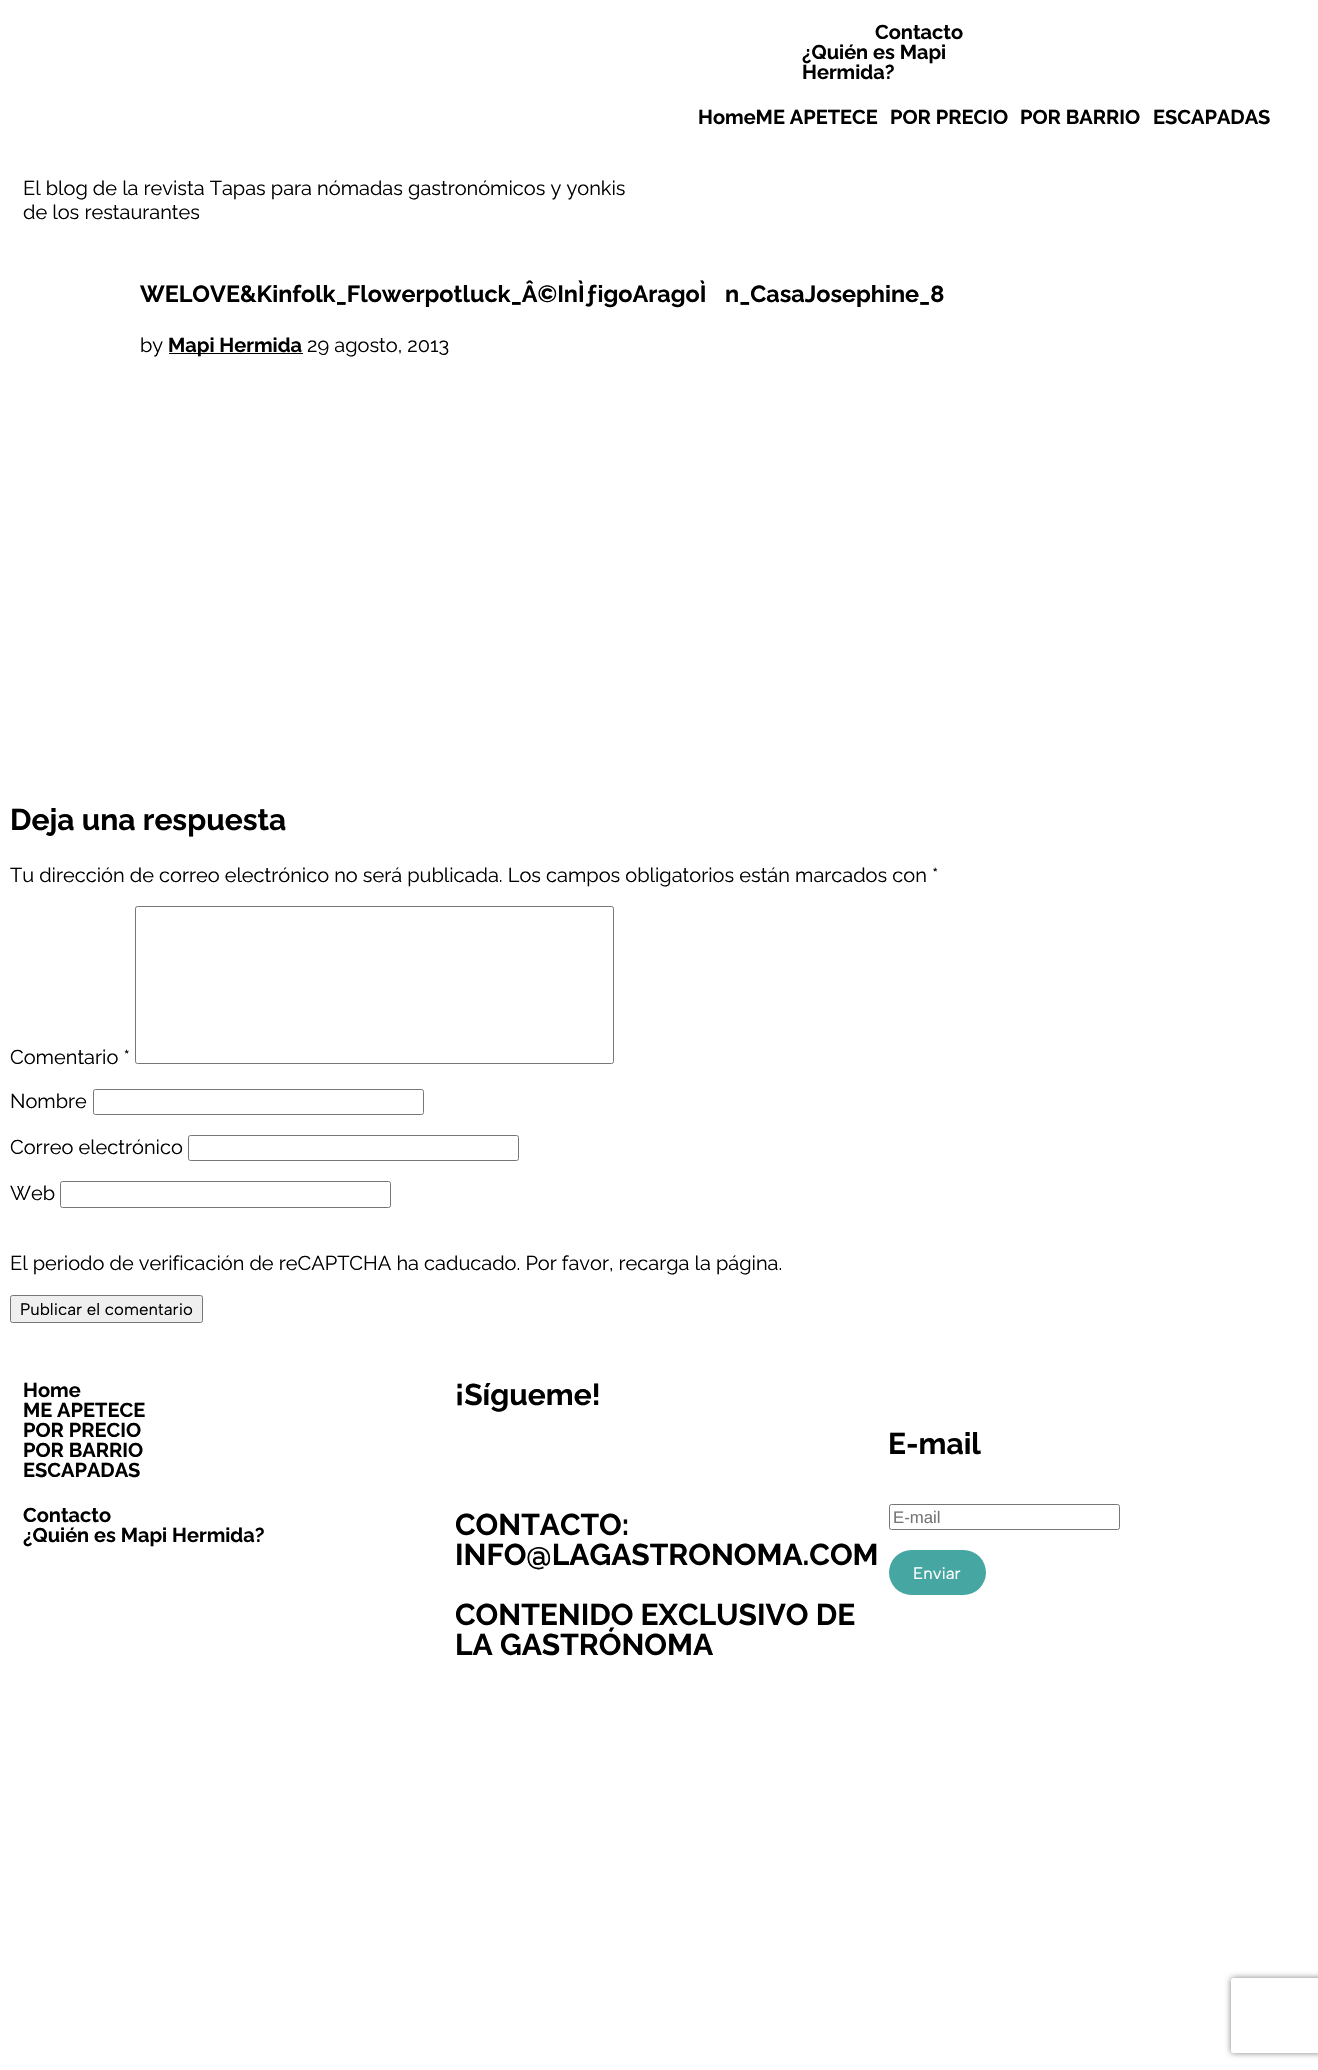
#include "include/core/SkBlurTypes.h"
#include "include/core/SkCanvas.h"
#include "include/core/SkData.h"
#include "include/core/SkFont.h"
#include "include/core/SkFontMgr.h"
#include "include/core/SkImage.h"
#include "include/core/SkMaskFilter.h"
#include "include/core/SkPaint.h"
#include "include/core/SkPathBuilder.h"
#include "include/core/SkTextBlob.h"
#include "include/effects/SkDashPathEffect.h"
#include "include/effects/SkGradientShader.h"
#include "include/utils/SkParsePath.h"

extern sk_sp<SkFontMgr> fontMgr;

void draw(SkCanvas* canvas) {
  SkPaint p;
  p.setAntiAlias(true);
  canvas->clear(SK_ColorWHITE);
  p.setColor(SK_ColorBLACK);
  canvas->drawRect(SkRect::MakeLTRB(169, 353, 303, 354), p);
  p.setStyle(SkPaint::kStroke_Style);
  p.setStrokeWidth(1);
  p.setColor(SkColorSetRGB(118, 118, 118));
  canvas->drawRoundRect(SkRect::MakeLTRB(135.5f, 906.5f, 613.5f, 1063.5f), 2, 2, p);
  canvas->drawRoundRect(SkRect::MakeLTRB(93.5f, 1089.5f, 423.5f, 1114.5f), 2, 2, p);
  canvas->drawRoundRect(SkRect::MakeLTRB(188.5f, 1135.5f, 518.5f, 1160.5f), 2, 2, p);
  canvas->drawRoundRect(SkRect::MakeLTRB(60.5f, 1181.5f, 390.5f, 1207.5f), 2, 2, p);
  p.setStyle(SkPaint::kFill_Style);
  p.setColor(SkColorSetRGB(239, 239, 239));
  canvas->drawRoundRect(SkRect::MakeLTRB(10.5f, 1295.5f, 202.5f, 1322.5f), 2, 2, p);
  p.setStyle(SkPaint::kStroke_Style);
  p.setColor(SkColorSetRGB(118, 118, 118));
  canvas->drawRoundRect(SkRect::MakeLTRB(10.5f, 1295.5f, 202.5f, 1322.5f), 2, 2, p);
  canvas->drawRoundRect(SkRect::MakeLTRB(889.5f, 1504.5f, 1119.5f, 1529.5f), 2, 2, p);
  p.setStyle(SkPaint::kFill_Style);
  p.setColor(SkColorSetRGB(70, 166, 162));
  canvas->drawRoundRect(SkRect::MakeLTRB(889, 1550, 986, 1595), 22.5f, 22.5f, p);
  canvas->save();
  canvas->clipPath(SkPathBuilder(SkPathFillType::kEvenOdd).moveTo(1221, 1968).lineTo(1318, 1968).lineTo(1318, 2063).lineTo(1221, 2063).close().moveTo(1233.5f, 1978).lineTo(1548.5f, 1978).cubicTo(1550, 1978, 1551, 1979, 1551, 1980.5f).lineTo(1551, 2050.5f).cubicTo(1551, 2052, 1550, 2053, 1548.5f, 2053).lineTo(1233.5f, 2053).cubicTo(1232, 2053, 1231, 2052, 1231, 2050.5f).lineTo(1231, 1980.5f).cubicTo(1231, 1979, 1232, 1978, 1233.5f, 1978).close().detach(), true);
  p.setColor(SkColorSetRGB(128, 128, 128));
  p.setMaskFilter(SkMaskFilter::MakeBlur(kNormal_SkBlurStyle, 3));
  canvas->drawRoundRect(SkRect::MakeLTRB(1231, 1978, 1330, 2053), 2.5f, 2.5f, p);
  p.setMaskFilter(nullptr);
  canvas->restore();
  SkFont font1(fontMgr->matchFamilyStyle("Raleway", SkFontStyle::Bold()), 20);
  font1.setSubpixel(true);
  p.setColor(SkColorSetRGB(1, 0, 0));
  canvas->drawString("Contacto", 875, 39, font1, p);
  canvas->drawString("¿Quién es Mapi", 802, 59, font1, p);
  canvas->drawString("Hermida?", 802, 79, font1, p);
  canvas->drawString("HomeME APETECE", 698, 124, font1, p);
  canvas->drawString("POR PRECIO", 890, 124, font1, p);
  canvas->drawString("POR BARRIO", 1020, 124, font1, p);
  canvas->drawString("ESCAPADAS", 1153, 124, font1, p);
  SkFont font2(fontMgr->matchFamilyStyle("Raleway", SkFontStyle::Normal()), 20);
  font2.setSubpixel(true);
  canvas->drawString("El blog de la revista Tapas para nómadas gastronómicos y yonkis", 23, 195, font2, p);
  canvas->drawString("de los restaurantes", 23, 219, font2, p);
  SkFont font3(fontMgr->matchFamilyStyle("Raleway", SkFontStyle::Bold()), 23.4f);
  font3.setSubpixel(true);
  canvas->drawString("WELOVE&Kinfolk_Flowerpotluck_Â©InÌƒigoAragoÌ", 140, 302, font3, p);
  canvas->drawString("n_CasaJosephine_8", 725, 302, font3, p);
  canvas->drawString("by", 140, 352, font2, p);
  canvas->drawString("Mapi Hermida", 168, 352, font1, p);
  canvas->drawString("29 agosto, 2013", 307, 352, font2, p);
  SkFont font4(fontMgr->matchFamilyStyle("Raleway", SkFontStyle::Bold()), 30);
  font4.setSubpixel(true);
  canvas->drawString("Deja una respuesta", 10, 830, font4, p);
  canvas->drawString("Tu dirección de correo electrónico no será publicada. Los campos obligatorios están marcados con *", 10, 882, font2, p);
  canvas->drawString("Comentario *", 10, 1064, font2, p);
  canvas->drawString("Nombre", 10, 1108, font2, p);
  canvas->drawString("Correo electrónico", 10, 1154, font2, p);
  canvas->drawString("Web", 10, 1200, font2, p);
  canvas->drawString("El periodo de verificación de reCAPTCHA ha caducado. Por favor, recarga la página.", 10, 1270, font2, p);
  SkFont font5(fontMgr->matchFamilyStyle("Albert Sans", SkFontStyle::Normal()), 16.75f);
  font5.setSubpixel(true);
  canvas->drawString("Publicar el comentario", 20, 1315, font5, p);
  canvas->drawString("Home", 23, 1397, font1, p);
  canvas->drawString("ME APETECE", 23, 1417, font1, p);
  canvas->drawString("POR PRECIO", 23, 1437, font1, p);
  canvas->drawString("POR BARRIO", 23, 1457, font1, p);
  canvas->drawString("ESCAPADAS", 23, 1477, font1, p);
  canvas->drawString("Contacto", 23, 1522, font1, p);
  canvas->drawString("¿Quién es Mapi Hermida?", 23, 1542, font1, p);
  canvas->drawString("¡Sígueme!", 455, 1405, font4, p);
  canvas->drawString("CONTACTO:", 455, 1535, font4, p);
  canvas->drawString("INFO@LAGASTRONOMA.COM", 455, 1565, font4, p);
  canvas->drawString("CONTENIDO EXCLUSIVO DE", 455, 1625, font4, p);
  canvas->drawString("LA GASTRÓNOMA", 455, 1655, font4, p);
  canvas->drawString("E-mail", 888, 1454, font4, p);
  SkFont font6(fontMgr->matchFamilyStyle("Liberation Sans", SkFontStyle::Normal()), 16.75f);
  font6.setSubpixel(true);
  p.setColor(SkColorSetRGB(117, 117, 117));
  canvas->drawString("E-mail", 893, 1523, font6, p);
  p.setColor(SK_ColorWHITE);
  canvas->drawString("Enviar", 913, 1579, font5, p);
}
